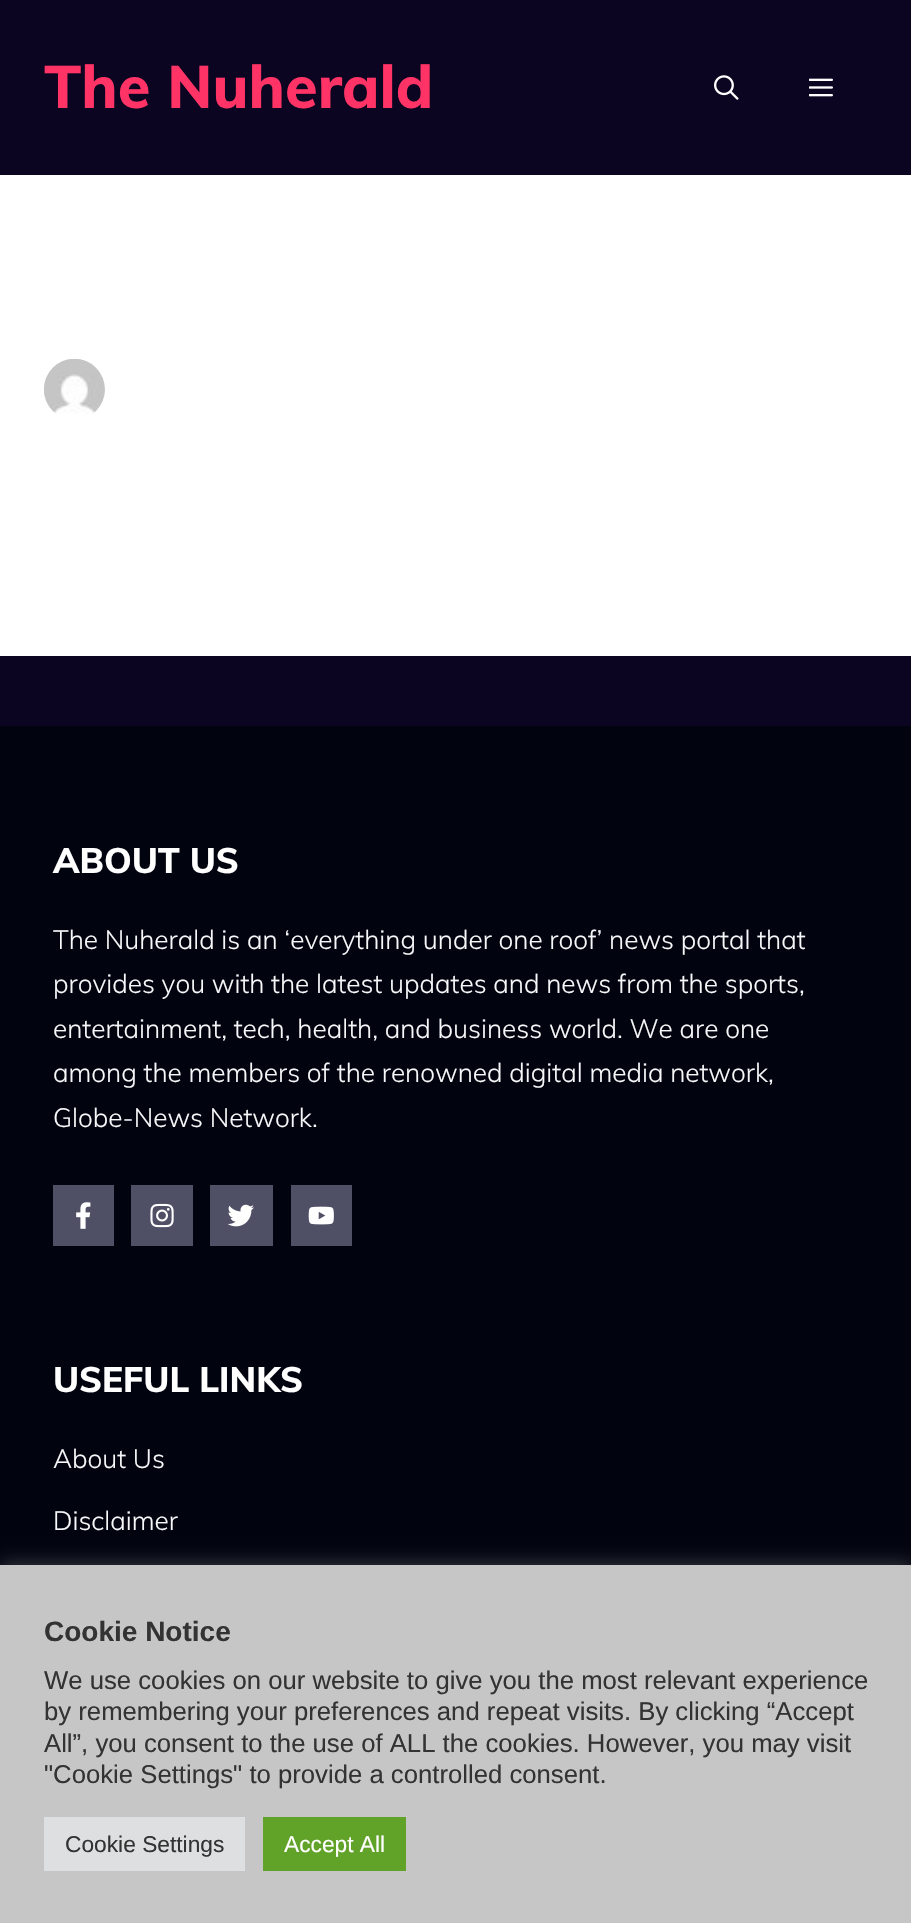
#include "include/core/SkBlurTypes.h"
#include "include/core/SkCanvas.h"
#include "include/core/SkData.h"
#include "include/core/SkFont.h"
#include "include/core/SkFontMgr.h"
#include "include/core/SkImage.h"
#include "include/core/SkMaskFilter.h"
#include "include/core/SkPaint.h"
#include "include/core/SkPathBuilder.h"
#include "include/core/SkTextBlob.h"
#include "include/effects/SkDashPathEffect.h"
#include "include/effects/SkGradientShader.h"
#include "include/utils/SkParsePath.h"

extern sk_sp<SkFontMgr> fontMgr;

void draw(SkCanvas* canvas) {
  SkPaint p;
  p.setAntiAlias(true);
  canvas->clear(SK_ColorWHITE);
  p.setColor(SkColorSetRGB(11, 5, 33));
  canvas->drawRect(SkRect::MakeLTRB(0, 0, 911, 175), p);
  canvas->drawImageRect(SkImages::DeferredFromEncodedData(SkData::MakeFromFileName("images/1.png")), SkRect::MakeLTRB(714, 75, 739, 100), SkSamplingOptions());
  canvas->drawImageRect(SkImages::DeferredFromEncodedData(SkData::MakeFromFileName("images/2.png")), SkRect::MakeLTRB(809, 78, 833, 97), SkSamplingOptions());
  canvas->drawImageRect(SkImages::DeferredFromEncodedData(SkData::MakeFromFileName("images/3.png")), SkRect::MakeLTRB(44, 359, 105, 414), SkSamplingOptions());
  canvas->drawRect(SkRect::MakeLTRB(0, 656, 911, 726), p);
  p.setColor(SkColorSetRGB(1, 3, 15));
  canvas->drawRect(SkRect::MakeLTRB(0, 726, 911, 1565), p);
  p.setColor(SkColorSetRGB(79, 79, 101));
  canvas->drawRect(SkRect::MakeLTRB(53, 1185, 114, 1246), p);
  canvas->drawImageRect(SkImages::DeferredFromEncodedData(SkData::MakeFromFileName("images/4.png")), SkRect::MakeLTRB(76, 1202, 91, 1229), SkSamplingOptions());
  canvas->drawRect(SkRect::MakeLTRB(131, 1185, 193, 1246), p);
  canvas->drawImageRect(SkImages::DeferredFromEncodedData(SkData::MakeFromFileName("images/5.png")), SkRect::MakeLTRB(150, 1203, 174, 1228), SkSamplingOptions());
  canvas->drawRect(SkRect::MakeLTRB(210, 1185, 273, 1246), p);
  canvas->drawImageRect(SkImages::DeferredFromEncodedData(SkData::MakeFromFileName("images/6.png")), SkRect::MakeLTRB(228, 1204, 254, 1227), SkSamplingOptions());
  canvas->drawRect(SkRect::MakeLTRB(291, 1185, 352, 1246), p);
  canvas->drawImageRect(SkImages::DeferredFromEncodedData(SkData::MakeFromFileName("images/7.png")), SkRect::MakeLTRB(308, 1206, 334, 1225), SkSamplingOptions());
  p.setColor(SkColorSetARGB(77, 172, 171, 171));
  p.setMaskFilter(SkMaskFilter::MakeBlur(kNormal_SkBlurStyle, 9));
  canvas->drawRect(SkRect::MakeLTRB(0, 1563, 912, 1922), p);
  p.setMaskFilter(nullptr);
  p.setColor(SkColorSetRGB(198, 198, 198));
  canvas->drawRect(SkRect::MakeLTRB(0, 1565, 911, 1923), p);
  p.setColor(SkColorSetRGB(222, 223, 224));
  canvas->drawRect(SkRect::MakeLTRB(44, 1817, 245, 1871), p);
  p.setColor(SkColorSetRGB(97, 162, 41));
  canvas->drawRect(SkRect::MakeLTRB(263, 1817, 406, 1871), p);
  SkFont font1(fontMgr->matchFamilyStyle("Muli", SkFontStyle(800, SkFontStyle::kNormal_Width, SkFontStyle::kUpright_Slant)), 59.5f);
  font1.setSubpixel(true);
  p.setColor(SkColorSetRGB(255, 51, 102));
  canvas->drawString("The Nuherald", 44, 108, font1, p);
  SkFont font2(fontMgr->matchFamilyStyle("Muli", SkFontStyle(800, SkFontStyle::kNormal_Width, SkFontStyle::kUpright_Slant)), 35);
  font2.setSubpixel(true);
  p.setColor(SK_ColorWHITE);
  canvas->drawString("ABOUT US", 53, 873, font2, p);
  SkFont font3(fontMgr->matchFamilyStyle("Muli", SkFontStyle(300, SkFontStyle::kNormal_Width, SkFontStyle::kUpright_Slant)), 26.25f);
  font3.setSubpixel(true);
  p.setColor(SkColorSetRGB(247, 248, 249));
  canvas->drawString("The Nuherald is an ‘everything under one roof’ news portal that", 53, 949, font3, p);
  canvas->drawString("provides you with the latest updates and news from the sports,", 53, 993, font3, p);
  canvas->drawString("entertainment, tech, health, and business world. We are one", 53, 1038, font3, p);
  canvas->drawString("among the members of the renowned digital media network,", 53, 1082, font3, p);
  canvas->drawString("Globe-News Network.", 53, 1127, font3, p);
  p.setColor(SK_ColorWHITE);
  canvas->drawString("USEFUL LINKS", 53, 1392, font2, p);
  p.setColor(SkColorSetRGB(247, 248, 249));
  canvas->drawString("About Us", 53, 1468, font3, p);
  canvas->drawString("Disclaimer", 53, 1530, font3, p);
  SkFont font4(fontMgr->matchFamilyStyle("Liberation Sans", SkFontStyle::Bold()), 28);
  font4.setSubpixel(true);
  p.setColor(SkColorSetRGB(51, 51, 51));
  canvas->drawString("Cookie Notice", 44, 1641, font4, p);
  SkFont font5(fontMgr->matchFamilyStyle("Liberation Sans", SkFontStyle::Normal()), 25.7f);
  font5.setSubpixel(true);
  canvas->drawString("We use cookies on our website to give you the most relevant experience", 44, 1689, font5, p);
  canvas->drawString("by remembering your preferences and repeat visits. By clicking “Accept", 44, 1720, font5, p);
  canvas->drawString("All”, you consent to the use of ALL the cookies. However, you may visit", 44, 1752, font5, p);
  canvas->drawString("\"Cookie Settings\" to provide a controlled consent.", 44, 1783, font5, p);
  SkFont font6(fontMgr->matchFamilyStyle("Liberation Sans", SkFontStyle::Normal()), 22.75f);
  font6.setSubpixel(true);
  canvas->drawString("Cookie Settings", 65, 1852, font6, p);
  p.setColor(SK_ColorWHITE);
  canvas->drawString("Accept All", 284, 1852, font6, p);
}
